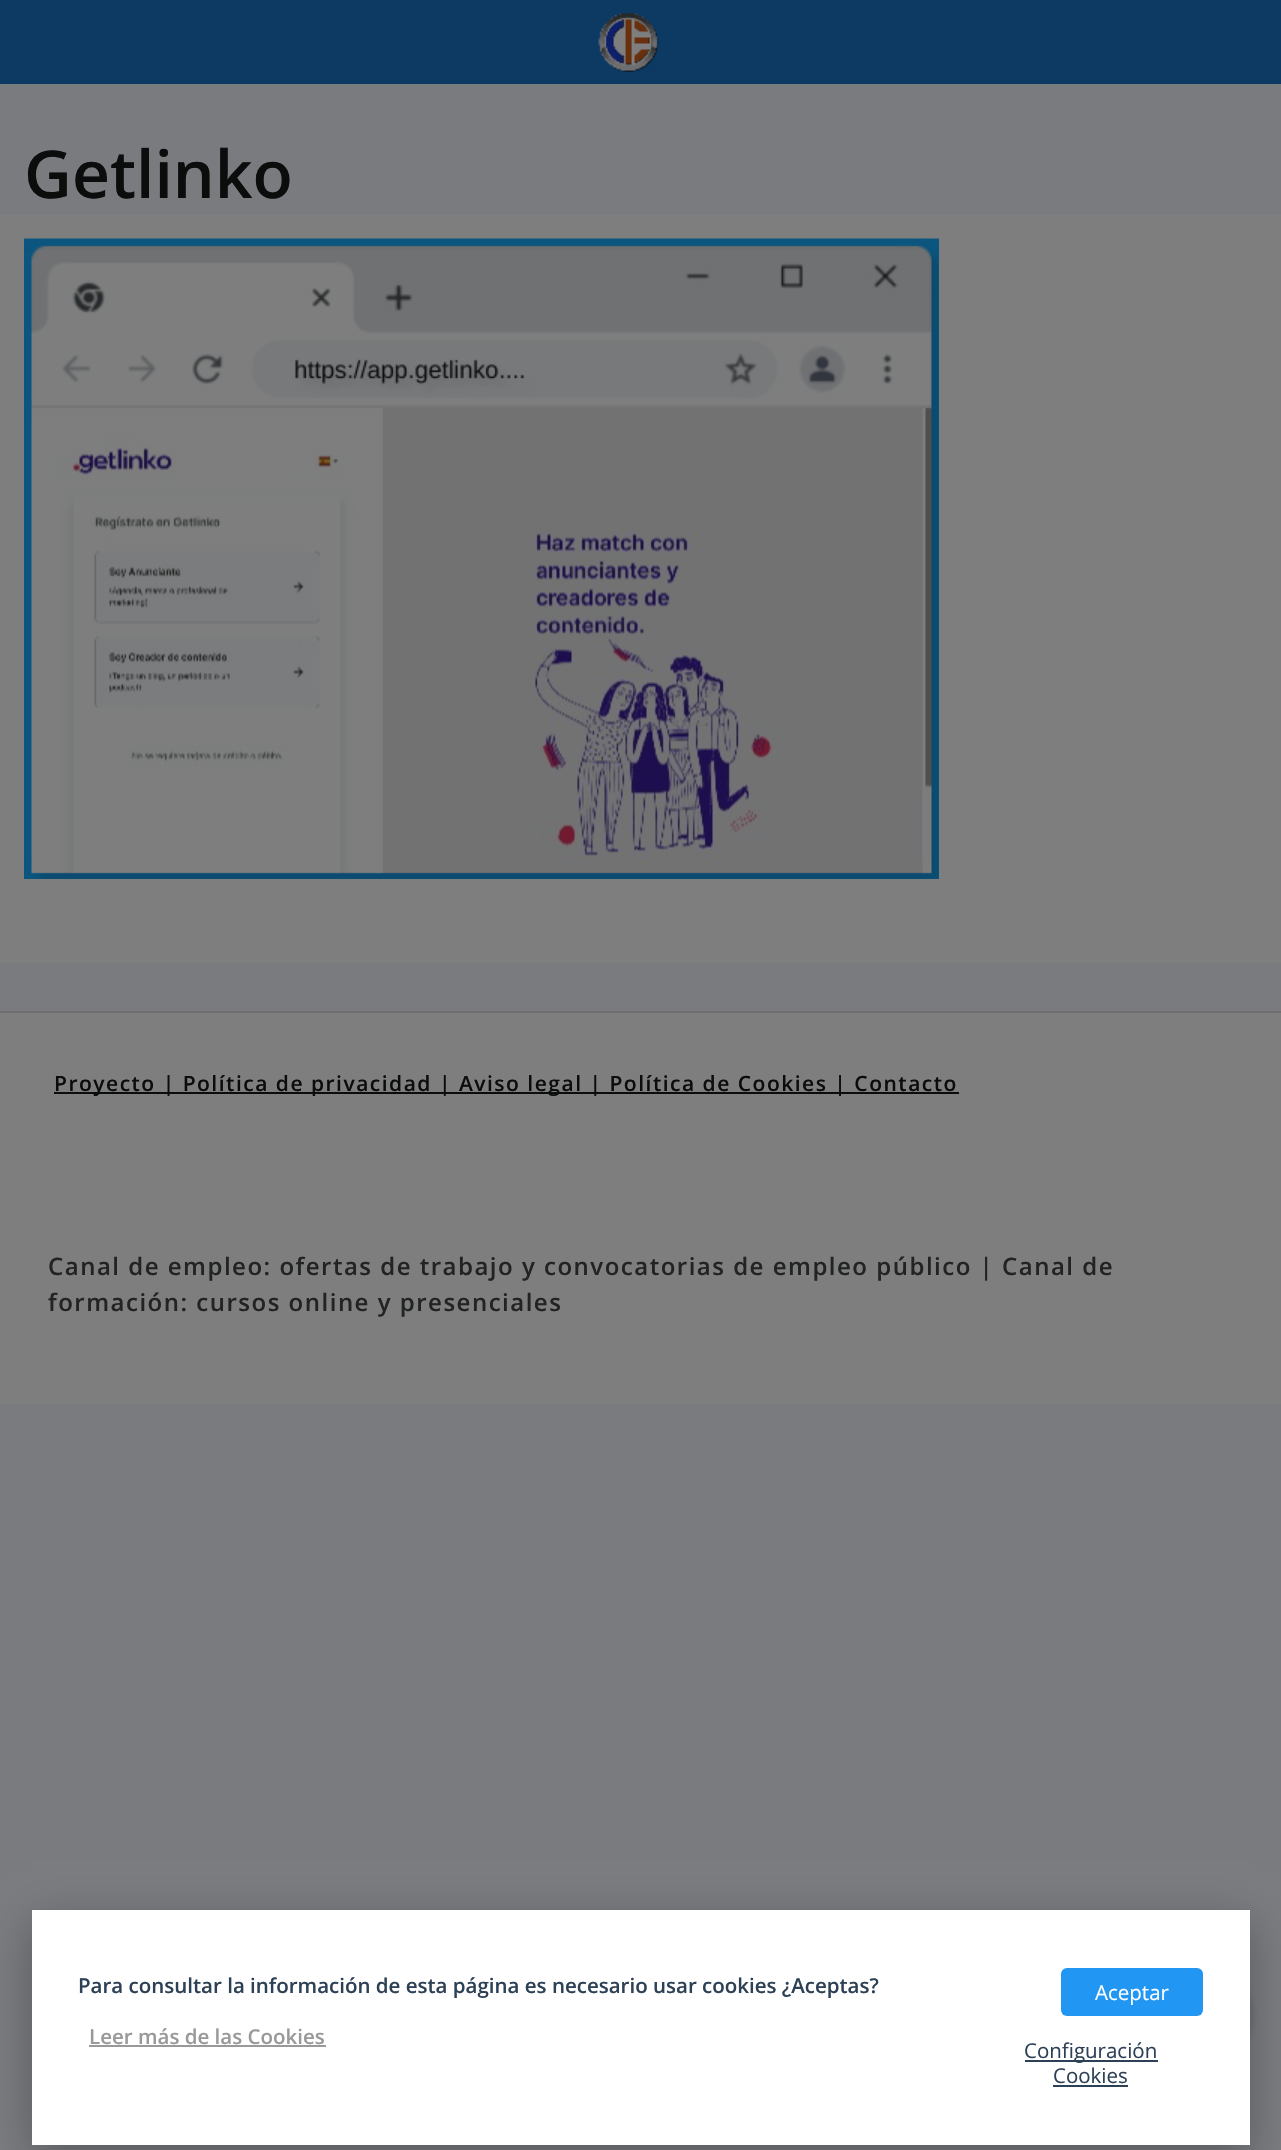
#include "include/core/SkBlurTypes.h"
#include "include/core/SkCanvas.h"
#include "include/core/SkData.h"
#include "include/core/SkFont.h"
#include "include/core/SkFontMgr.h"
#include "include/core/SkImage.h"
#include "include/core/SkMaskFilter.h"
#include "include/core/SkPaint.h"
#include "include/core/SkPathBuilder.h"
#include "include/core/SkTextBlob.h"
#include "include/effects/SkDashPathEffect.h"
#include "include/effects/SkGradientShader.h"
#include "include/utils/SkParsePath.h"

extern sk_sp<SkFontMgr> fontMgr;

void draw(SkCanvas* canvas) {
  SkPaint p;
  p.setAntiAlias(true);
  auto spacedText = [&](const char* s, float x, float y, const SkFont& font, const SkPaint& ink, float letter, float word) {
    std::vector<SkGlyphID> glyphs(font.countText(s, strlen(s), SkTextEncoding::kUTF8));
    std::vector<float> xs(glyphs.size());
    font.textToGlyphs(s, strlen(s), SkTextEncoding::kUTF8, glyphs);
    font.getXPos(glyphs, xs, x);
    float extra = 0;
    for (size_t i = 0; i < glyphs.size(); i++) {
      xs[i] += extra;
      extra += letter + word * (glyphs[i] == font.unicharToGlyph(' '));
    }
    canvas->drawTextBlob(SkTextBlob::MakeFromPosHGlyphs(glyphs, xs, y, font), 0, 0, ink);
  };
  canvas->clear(SkColorSetRGB(121, 123, 127));
  p.setColor(SkColorSetRGB(12, 58, 98));
  canvas->drawRect(SkRect::MakeLTRB(0, 0, 1281, 84), p);
  canvas->drawImageRect(SkImages::DeferredFromEncodedData(SkData::MakeFromFileName("images/1.png")), SkRect::MakeLTRB(598, 13, 659, 72), SkSamplingOptions());
  p.setColor(SkColorSetARGB(128, 11, 12, 12));
  p.setMaskFilter(SkMaskFilter::MakeBlur(kNormal_SkBlurStyle, 7.5f));
  canvas->drawRoundRect(SkRect::MakeLTRB(1149, 1967, 1245, 2063), 48, 48, p);
  p.setMaskFilter(nullptr);
  p.setColor(SkColorSetRGB(126, 126, 127));
  canvas->drawRect(SkRect::MakeLTRB(0, 215, 1281, 963), p);
  canvas->drawImageRect(SkImages::DeferredFromEncodedData(SkData::MakeFromFileName("images/2.png")), SkRect::MakeLTRB(24, 238, 939, 879), SkSamplingOptions());
  canvas->drawRect(SkRect::MakeLTRB(0, 1013, 1281, 1404), p);
  p.setColor(SkColorSetRGB(110, 110, 111));
  canvas->drawRect(SkRect::MakeLTRB(0, 1011, 1281, 1013), p);
  p.setColor(SkColorSetRGB(11, 12, 12));
  canvas->drawRect(SkRect::MakeLTRB(54, 1092, 959, 1094), p);
  p.setColor(SkColorSetARGB(71, 2, 2, 3));
  p.setMaskFilter(SkMaskFilter::MakeBlur(kNormal_SkBlurStyle, 21.5f));
  canvas->drawRect(SkRect::MakeLTRB(32, 1923, 1250, 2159), p);
  p.setMaskFilter(nullptr);
  p.setColor(SK_ColorWHITE);
  canvas->drawRect(SkRect::MakeLTRB(32, 1910, 1250, 2145), p);
  p.setColor(SkColorSetRGB(153, 153, 153));
  canvas->drawRect(SkRect::MakeLTRB(89, 2045, 326, 2047), p);
  p.setColor(SkColorSetRGB(33, 150, 243));
  canvas->drawRoundRect(SkRect::MakeLTRB(1061, 1968, 1203, 2016), 6, 6, p);
  p.setColor(SkColorSetRGB(45, 65, 86));
  canvas->drawRect(SkRect::MakeLTRB(1025, 2060, 1158, 2062), p);
  canvas->drawRect(SkRect::MakeLTRB(1053, 2085, 1128, 2087), p);
  SkFont font1(fontMgr->matchFamilyStyle("Open Sans", SkFontStyle(600, SkFontStyle::kNormal_Width, SkFontStyle::kUpright_Slant)), 66);
  font1.setSubpixel(true);
  p.setColor(SkColorSetRGB(11, 12, 12));
  canvas->drawString("Getlinko", 24, 198, font1, p);
  SkFont font2(fontMgr->matchFamilyStyle("Open Sans", SkFontStyle(600, SkFontStyle::kNormal_Width, SkFontStyle::kUpright_Slant)), 21);
  font2.setSubpixel(true);
  spacedText("Proyecto | Política de privacidad | Aviso legal | Política de Cookies | Contacto", 54, 1091, font2, p, 1.5f, 0);
  SkFont font3(fontMgr->matchFamilyStyle("Open Sans", SkFontStyle(600, SkFontStyle::kNormal_Width, SkFontStyle::kUpright_Slant)), 24);
  font3.setSubpixel(true);
  p.setColor(SkColorSetRGB(34, 35, 35));
  spacedText("Canal de empleo: ofertas de trabajo y convocatorias de empleo público | Canal de", 48, 1275, font3, p, 1.5f, 0);
  spacedText("formación: cursos online y presenciales", 48, 1311, font3, p, 1.5f, 0);
  SkFont font4(fontMgr->matchFamilyStyle("Open Sans", SkFontStyle(600, SkFontStyle::kNormal_Width, SkFontStyle::kUpright_Slant)), 20.5f);
  font4.setSubpixel(true);
  p.setColor(SkColorSetRGB(45, 65, 86));
  canvas->drawString("Para consultar la información de esta página es necesario usar cookies ¿Aceptas?", 78, 1993, font4, p);
  p.setColor(SkColorSetRGB(153, 153, 153));
  canvas->drawString("Leer más de las Cookies", 89, 2044, font4, p);
  SkFont font5(fontMgr->matchFamilyStyle("Open Sans", SkFontStyle::Normal()), 20.5f);
  font5.setSubpixel(true);
  p.setColor(SK_ColorWHITE);
  canvas->drawString("Aceptar", 1095, 2000, font5, p);
  p.setColor(SkColorSetRGB(45, 65, 86));
  canvas->drawString("Configuración", 1024, 2058, font5, p);
  canvas->drawString("Cookies", 1053, 2083, font5, p);
}
